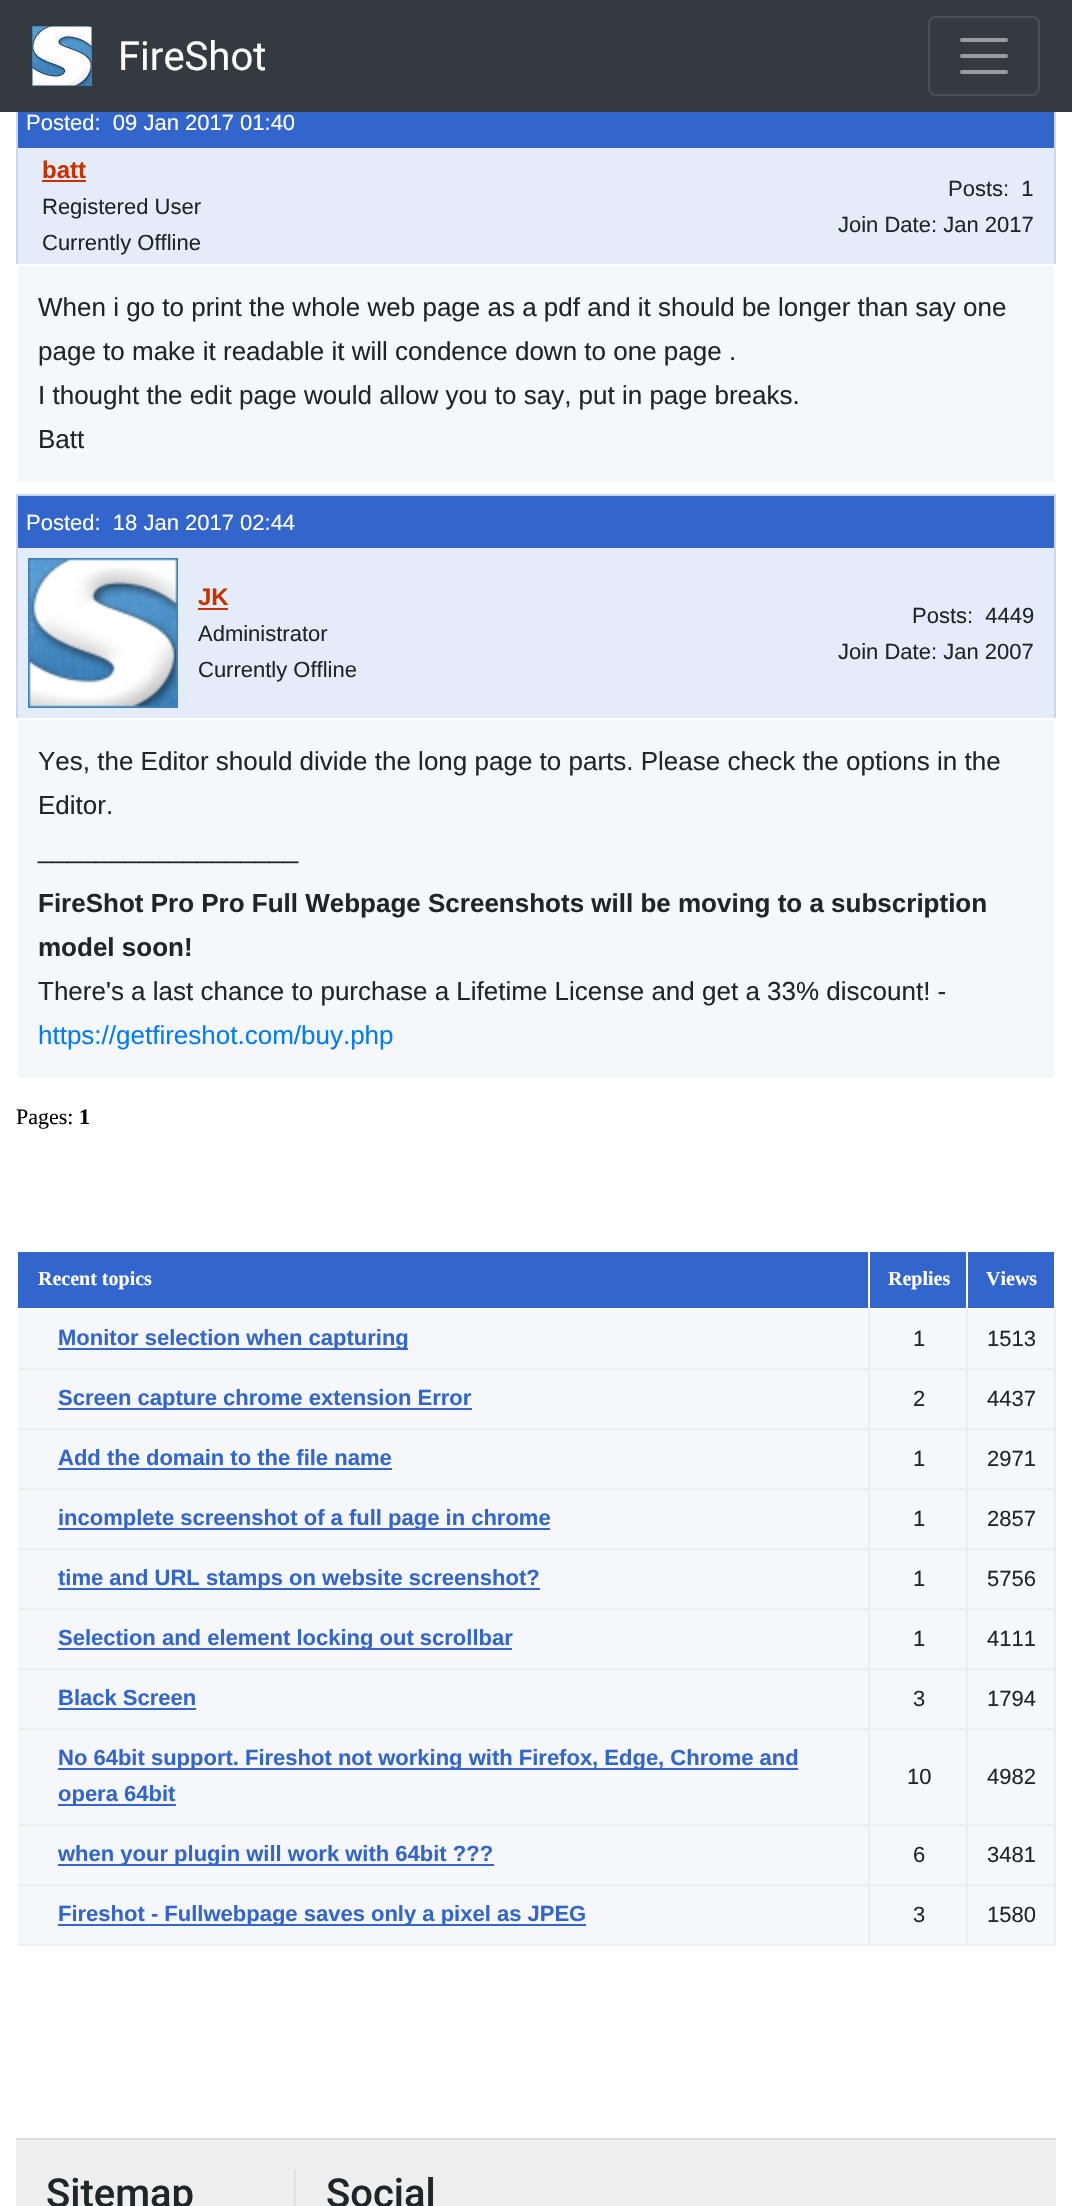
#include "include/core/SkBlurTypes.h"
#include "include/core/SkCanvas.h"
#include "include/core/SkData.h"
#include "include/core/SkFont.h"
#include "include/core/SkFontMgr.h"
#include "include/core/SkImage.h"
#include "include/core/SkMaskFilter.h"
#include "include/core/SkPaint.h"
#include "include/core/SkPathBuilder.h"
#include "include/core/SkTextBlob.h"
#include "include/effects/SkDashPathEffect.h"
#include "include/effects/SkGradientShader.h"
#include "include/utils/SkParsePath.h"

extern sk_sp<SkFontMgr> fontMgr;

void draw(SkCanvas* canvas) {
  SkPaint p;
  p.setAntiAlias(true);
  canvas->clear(SK_ColorWHITE);
  p.setColor(SkColorSetRGB(52, 58, 64));
  canvas->drawRect(SkRect::MakeLTRB(0, 0, 1072, 112), p);
  canvas->drawImageRect(SkImages::DeferredFromEncodedData(SkData::MakeFromFileName("images/1.png")), SkRect::MakeLTRB(32, 26, 92, 86), SkSamplingOptions());
  p.setStyle(SkPaint::kStroke_Style);
  p.setStrokeWidth(2);
  p.setColor(SkColorSetRGB(72, 78, 83));
  canvas->drawRoundRect(SkRect::MakeLTRB(929, 17, 1039, 95), 7, 7, p);
  p.setStrokeWidth(4);
  p.setStrokeCap(SkPaint::kRound_Cap);
  p.setColor(SkColorSetRGB(154, 157, 160));
  canvas->drawPath(SkPathBuilder().moveTo(962, 40).lineTo(1006, 40).moveTo(962, 56).lineTo(1006, 56).moveTo(962, 72).lineTo(1006, 72).detach(), p);
  p.setStyle(SkPaint::kFill_Style);
  p.setColor(SkColorSetRGB(204, 215, 237));
  canvas->drawRect(SkRect::MakeLTRB(1054, 112, 1056, 264), p);
  canvas->drawRect(SkRect::MakeLTRB(16, 112, 18, 264), p);
  p.setColor(SkColorSetRGB(51, 102, 204));
  canvas->drawRect(SkRect::MakeLTRB(18, 112, 1054, 148), p);
  p.setColor(SkColorSetRGB(229, 236, 249));
  canvas->drawRect(SkRect::MakeLTRB(18, 148, 1054, 264), p);
  p.setColor(SkColorSetRGB(199, 50, 0));
  canvas->drawRect(SkRect::MakeLTRB(42, 180, 86, 182), p);
  p.setColor(SkColorSetRGB(245, 247, 251));
  canvas->drawRect(SkRect::MakeLTRB(18, 266, 1054, 482), p);
  p.setColor(SkColorSetRGB(204, 215, 237));
  canvas->drawRect(SkRect::MakeLTRB(16, 494, 1056, 496), p);
  canvas->drawRect(SkRect::MakeLTRB(1054, 494, 1056, 718), p);
  canvas->drawRect(SkRect::MakeLTRB(16, 494, 18, 718), p);
  p.setColor(SkColorSetRGB(51, 102, 204));
  canvas->drawRect(SkRect::MakeLTRB(18, 496, 1054, 548), p);
  p.setColor(SkColorSetRGB(229, 236, 249));
  canvas->drawRect(SkRect::MakeLTRB(18, 548, 1054, 718), p);
  canvas->drawImageRect(SkImages::DeferredFromEncodedData(SkData::MakeFromFileName("images/2.png")), SkRect::MakeLTRB(28, 558, 178, 708), SkSamplingOptions());
  p.setColor(SkColorSetRGB(199, 50, 0));
  canvas->drawRect(SkRect::MakeLTRB(198, 608, 228, 610), p);
  p.setColor(SkColorSetRGB(245, 247, 251));
  canvas->drawRect(SkRect::MakeLTRB(18, 720, 1054, 1078), p);
  p.setColor(SkColorSetRGB(51, 102, 204));
  canvas->drawRect(SkRect::MakeLTRB(18, 1252, 1054, 1308), p);
  p.setColor(SkColorSetRGB(245, 247, 251));
  canvas->drawRect(SkRect::MakeLTRB(18, 1310, 1054, 1368), p);
  canvas->drawRect(SkRect::MakeLTRB(18, 1370, 1054, 1428), p);
  canvas->drawRect(SkRect::MakeLTRB(18, 1430, 1054, 1488), p);
  canvas->drawRect(SkRect::MakeLTRB(18, 1490, 1054, 1548), p);
  canvas->drawRect(SkRect::MakeLTRB(18, 1550, 1054, 1608), p);
  canvas->drawRect(SkRect::MakeLTRB(18, 1610, 1054, 1668), p);
  canvas->drawRect(SkRect::MakeLTRB(18, 1670, 1054, 1728), p);
  canvas->drawRect(SkRect::MakeLTRB(18, 1730, 1054, 1824), p);
  canvas->drawRect(SkRect::MakeLTRB(18, 1826, 1054, 1884), p);
  canvas->drawRect(SkRect::MakeLTRB(18, 1886, 1054, 1944), p);
  p.setColor(SkColorSetRGB(238, 238, 238));
  canvas->drawRect(SkRect::MakeLTRB(1054, 1308, 1056, 1946), p);
  canvas->drawRect(SkRect::MakeLTRB(966, 1944, 1056, 1946), p);
  canvas->drawRect(SkRect::MakeLTRB(966, 1884, 968, 1946), p);
  canvas->drawRect(SkRect::MakeLTRB(966, 1884, 1056, 1886), p);
  canvas->drawRect(SkRect::MakeLTRB(966, 1824, 968, 1886), p);
  canvas->drawRect(SkRect::MakeLTRB(966, 1824, 1056, 1826), p);
  canvas->drawRect(SkRect::MakeLTRB(966, 1728, 968, 1826), p);
  canvas->drawRect(SkRect::MakeLTRB(966, 1728, 1056, 1730), p);
  canvas->drawRect(SkRect::MakeLTRB(966, 1668, 968, 1730), p);
  canvas->drawRect(SkRect::MakeLTRB(966, 1668, 1056, 1670), p);
  canvas->drawRect(SkRect::MakeLTRB(966, 1608, 968, 1670), p);
  canvas->drawRect(SkRect::MakeLTRB(966, 1608, 1056, 1610), p);
  canvas->drawRect(SkRect::MakeLTRB(966, 1548, 968, 1610), p);
  canvas->drawRect(SkRect::MakeLTRB(966, 1548, 1056, 1550), p);
  canvas->drawRect(SkRect::MakeLTRB(966, 1488, 968, 1550), p);
  canvas->drawRect(SkRect::MakeLTRB(966, 1488, 1056, 1490), p);
  canvas->drawRect(SkRect::MakeLTRB(966, 1428, 968, 1490), p);
  canvas->drawRect(SkRect::MakeLTRB(966, 1428, 1056, 1430), p);
  canvas->drawRect(SkRect::MakeLTRB(966, 1368, 968, 1430), p);
  canvas->drawRect(SkRect::MakeLTRB(966, 1368, 1056, 1370), p);
  canvas->drawRect(SkRect::MakeLTRB(966, 1308, 968, 1370), p);
  canvas->drawRect(SkRect::MakeLTRB(868, 1944, 968, 1946), p);
  canvas->drawRect(SkRect::MakeLTRB(868, 1884, 870, 1946), p);
  canvas->drawRect(SkRect::MakeLTRB(868, 1884, 968, 1886), p);
  canvas->drawRect(SkRect::MakeLTRB(868, 1824, 870, 1886), p);
  canvas->drawRect(SkRect::MakeLTRB(868, 1824, 968, 1826), p);
  canvas->drawRect(SkRect::MakeLTRB(868, 1728, 870, 1826), p);
  canvas->drawRect(SkRect::MakeLTRB(868, 1728, 968, 1730), p);
  canvas->drawRect(SkRect::MakeLTRB(868, 1668, 870, 1730), p);
  canvas->drawRect(SkRect::MakeLTRB(868, 1668, 968, 1670), p);
  canvas->drawRect(SkRect::MakeLTRB(868, 1608, 870, 1670), p);
  canvas->drawRect(SkRect::MakeLTRB(868, 1608, 968, 1610), p);
  canvas->drawRect(SkRect::MakeLTRB(868, 1548, 870, 1610), p);
  canvas->drawRect(SkRect::MakeLTRB(868, 1548, 968, 1550), p);
  canvas->drawRect(SkRect::MakeLTRB(868, 1488, 870, 1550), p);
  canvas->drawRect(SkRect::MakeLTRB(868, 1488, 968, 1490), p);
  canvas->drawRect(SkRect::MakeLTRB(868, 1428, 870, 1490), p);
  canvas->drawRect(SkRect::MakeLTRB(868, 1428, 968, 1430), p);
  canvas->drawRect(SkRect::MakeLTRB(868, 1368, 870, 1430), p);
  canvas->drawRect(SkRect::MakeLTRB(868, 1368, 968, 1370), p);
  canvas->drawRect(SkRect::MakeLTRB(868, 1308, 870, 1370), p);
  p.setColor(SK_ColorWHITE);
  canvas->drawRect(SkRect::MakeLTRB(868, 1250, 870, 1310), p);
  canvas->drawRect(SkRect::MakeLTRB(1054, 1308, 1056, 1310), p);
  canvas->drawRect(SkRect::MakeLTRB(966, 1250, 968, 1310), p);
  p.setColor(SkColorSetRGB(238, 238, 238));
  canvas->drawRect(SkRect::MakeLTRB(16, 1368, 870, 1370), p);
  p.setColor(SK_ColorWHITE);
  canvas->drawRect(SkRect::MakeLTRB(16, 1368, 18, 1370), p);
  p.setColor(SkColorSetRGB(51, 102, 204));
  canvas->drawRect(SkRect::MakeLTRB(58, 1348, 408, 1350), p);
  p.setColor(SkColorSetRGB(238, 238, 238));
  canvas->drawRect(SkRect::MakeLTRB(16, 1428, 870, 1430), p);
  p.setColor(SK_ColorWHITE);
  canvas->drawRect(SkRect::MakeLTRB(16, 1428, 18, 1430), p);
  p.setColor(SkColorSetRGB(51, 102, 204));
  canvas->drawRect(SkRect::MakeLTRB(58, 1408, 472, 1410), p);
  p.setColor(SkColorSetRGB(238, 238, 238));
  canvas->drawRect(SkRect::MakeLTRB(16, 1488, 870, 1490), p);
  p.setColor(SK_ColorWHITE);
  canvas->drawRect(SkRect::MakeLTRB(16, 1488, 18, 1490), p);
  p.setColor(SkColorSetRGB(51, 102, 204));
  canvas->drawRect(SkRect::MakeLTRB(58, 1468, 392, 1470), p);
  p.setColor(SkColorSetRGB(238, 238, 238));
  canvas->drawRect(SkRect::MakeLTRB(16, 1548, 870, 1550), p);
  p.setColor(SK_ColorWHITE);
  canvas->drawRect(SkRect::MakeLTRB(16, 1548, 18, 1550), p);
  p.setColor(SkColorSetRGB(51, 102, 204));
  canvas->drawRect(SkRect::MakeLTRB(58, 1528, 550, 1530), p);
  p.setColor(SkColorSetRGB(238, 238, 238));
  canvas->drawRect(SkRect::MakeLTRB(16, 1608, 870, 1610), p);
  p.setColor(SK_ColorWHITE);
  canvas->drawRect(SkRect::MakeLTRB(16, 1608, 18, 1610), p);
  p.setColor(SkColorSetRGB(51, 102, 204));
  canvas->drawRect(SkRect::MakeLTRB(58, 1588, 540, 1590), p);
  p.setColor(SkColorSetRGB(238, 238, 238));
  canvas->drawRect(SkRect::MakeLTRB(16, 1668, 870, 1670), p);
  p.setColor(SK_ColorWHITE);
  canvas->drawRect(SkRect::MakeLTRB(16, 1668, 18, 1670), p);
  p.setColor(SkColorSetRGB(51, 102, 204));
  canvas->drawRect(SkRect::MakeLTRB(58, 1648, 512, 1650), p);
  p.setColor(SkColorSetRGB(238, 238, 238));
  canvas->drawRect(SkRect::MakeLTRB(16, 1728, 870, 1730), p);
  p.setColor(SK_ColorWHITE);
  canvas->drawRect(SkRect::MakeLTRB(16, 1728, 18, 1730), p);
  p.setColor(SkColorSetRGB(51, 102, 204));
  canvas->drawRect(SkRect::MakeLTRB(58, 1708, 196, 1710), p);
  p.setColor(SkColorSetRGB(238, 238, 238));
  canvas->drawRect(SkRect::MakeLTRB(16, 1824, 870, 1826), p);
  p.setColor(SK_ColorWHITE);
  canvas->drawRect(SkRect::MakeLTRB(16, 1824, 18, 1826), p);
  p.setColor(SkColorSetRGB(51, 102, 204));
  canvas->drawRect(SkRect::MakeLTRB(58, 1768, 798, 1770), p);
  canvas->drawRect(SkRect::MakeLTRB(58, 1804, 176, 1806), p);
  p.setColor(SkColorSetRGB(238, 238, 238));
  canvas->drawRect(SkRect::MakeLTRB(16, 1884, 870, 1886), p);
  p.setColor(SK_ColorWHITE);
  canvas->drawRect(SkRect::MakeLTRB(16, 1884, 18, 1886), p);
  p.setColor(SkColorSetRGB(51, 102, 204));
  canvas->drawRect(SkRect::MakeLTRB(58, 1864, 494, 1866), p);
  p.setColor(SkColorSetRGB(238, 238, 238));
  canvas->drawRect(SkRect::MakeLTRB(16, 1944, 870, 1946), p);
  p.setColor(SK_ColorWHITE);
  canvas->drawRect(SkRect::MakeLTRB(16, 1944, 18, 1946), p);
  p.setColor(SkColorSetRGB(51, 102, 204));
  canvas->drawRect(SkRect::MakeLTRB(58, 1924, 586, 1926), p);
  p.setColor(SkColorSetRGB(238, 238, 238));
  canvas->drawRect(SkRect::MakeLTRB(16, 2140, 1056, 2206), p);
  p.setColor(SkColorSetRGB(221, 221, 221));
  canvas->drawRect(SkRect::MakeLTRB(16, 2138, 1056, 2140), p);
  p.setColor(SkColorSetRGB(222, 226, 230));
  canvas->drawRect(SkRect::MakeLTRB(294, 2170, 296, 2206), p);
  SkFont font1(fontMgr->matchFamilyStyle("Roboto", SkFontStyle::Normal()), 40);
  font1.setSubpixel(true);
  p.setColor(SK_ColorWHITE);
  canvas->drawString("FireShot", 118, 70, font1, p);
  SkFont font2(fontMgr->matchFamilyStyle("Liberation Sans", SkFontStyle::Normal()), 22);
  font2.setSubpixel(true);
  canvas->drawString("Posted:  09 Jan 2017 01:40", 26, 130, font2, p);
  SkFont font3(fontMgr->matchFamilyStyle("Liberation Sans", SkFontStyle::Bold()), 24);
  font3.setSubpixel(true);
  p.setColor(SkColorSetRGB(199, 50, 0));
  canvas->drawString("batt", 42, 178, font3, p);
  p.setColor(SkColorSetRGB(33, 37, 41));
  canvas->drawString("Registered User", 42, 214, font2, p);
  canvas->drawString("Currently Offline", 42, 250, font2, p);
  canvas->drawString("Posts:  1", 948, 196, font2, p);
  canvas->drawString("Join Date: Jan 2017", 838, 232, font2, p);
  SkFont font4(fontMgr->matchFamilyStyle("Liberation Sans", SkFontStyle::Normal()), 26);
  font4.setSubpixel(true);
  canvas->drawString("When i go to print the whole web page as a pdf and it should be longer than say one", 38, 316, font4, p);
  canvas->drawString("page to make it readable it will condence down to one page .", 38, 360, font4, p);
  canvas->drawString("I thought the edit page would allow you to say, put in page breaks.", 38, 404, font4, p);
  canvas->drawString("Batt", 38, 448, font4, p);
  p.setColor(SK_ColorWHITE);
  canvas->drawString("Posted:  18 Jan 2017 02:44", 26, 530, font2, p);
  p.setColor(SkColorSetRGB(199, 50, 0));
  canvas->drawString("JK", 198, 605, font3, p);
  p.setColor(SkColorSetRGB(33, 37, 41));
  canvas->drawString("Administrator", 198, 641, font2, p);
  canvas->drawString("Currently Offline", 198, 677, font2, p);
  canvas->drawString("Posts:  4449", 912, 623, font2, p);
  canvas->drawString("Join Date: Jan 2007", 838, 659, font2, p);
  canvas->drawString("Yes, the Editor should divide the long page to parts. Please check the options in the", 38, 770, font4, p);
  canvas->drawString("Editor.", 38, 814, font4, p);
  canvas->drawString("__________________", 38, 858, font4, p);
  SkFont font5(fontMgr->matchFamilyStyle("Liberation Sans", SkFontStyle::Bold()), 26);
  font5.setSubpixel(true);
  canvas->drawString("FireShot Pro Pro Full Webpage Screenshots will be moving to a subscription", 38, 912, font5, p);
  canvas->drawString("model soon!", 38, 956, font5, p);
  canvas->drawString("There's a last chance to purchase a Lifetime License and get a 33% discount! -", 38, 1000, font4, p);
  p.setColor(SkColorSetRGB(0, 123, 255));
  canvas->drawString("https://getfireshot.com/buy.php", 38, 1044, font4, p);
  SkFont font6(fontMgr->matchFamilyStyle("Liberation Serif", SkFontStyle::Normal()), 22);
  font6.setSubpixel(true);
  p.setColor(SK_ColorBLACK);
  canvas->drawString("Pages:", 16, 1124, font6, p);
  SkFont font7(fontMgr->matchFamilyStyle("Liberation Serif", SkFontStyle::Bold()), 22);
  font7.setSubpixel(true);
  canvas->drawString("1", 79, 1124, font7, p);
  SkFont font8(fontMgr->matchFamilyStyle("Liberation Serif", SkFontStyle::Bold()), 20);
  font8.setSubpixel(true);
  p.setColor(SK_ColorWHITE);
  canvas->drawString("Recent topics", 38, 1285, font8, p);
  canvas->drawString("Replies", 888, 1285, font8, p);
  canvas->drawString("Views", 986, 1285, font8, p);
  SkFont font9(fontMgr->matchFamilyStyle("Liberation Sans", SkFontStyle::Bold()), 22);
  font9.setSubpixel(true);
  p.setColor(SkColorSetRGB(51, 102, 204));
  canvas->drawString("Monitor selection when capturing", 58, 1345, font9, p);
  p.setColor(SkColorSetRGB(33, 37, 41));
  canvas->drawString("1", 913, 1346, font2, p);
  canvas->drawString("1513", 987, 1346, font2, p);
  p.setColor(SkColorSetRGB(51, 102, 204));
  canvas->drawString("Screen capture chrome extension Error", 58, 1405, font9, p);
  p.setColor(SkColorSetRGB(33, 37, 41));
  canvas->drawString("2", 913, 1406, font2, p);
  canvas->drawString("4437", 987, 1406, font2, p);
  p.setColor(SkColorSetRGB(51, 102, 204));
  canvas->drawString("Add the domain to the file name", 58, 1465, font9, p);
  p.setColor(SkColorSetRGB(33, 37, 41));
  canvas->drawString("1", 913, 1466, font2, p);
  canvas->drawString("2971", 987, 1466, font2, p);
  p.setColor(SkColorSetRGB(51, 102, 204));
  canvas->drawString("incomplete screenshot of a full page in chrome", 58, 1525, font9, p);
  p.setColor(SkColorSetRGB(33, 37, 41));
  canvas->drawString("1", 913, 1526, font2, p);
  canvas->drawString("2857", 987, 1526, font2, p);
  p.setColor(SkColorSetRGB(51, 102, 204));
  canvas->drawString("time and URL stamps on website screenshot?", 58, 1585, font9, p);
  p.setColor(SkColorSetRGB(33, 37, 41));
  canvas->drawString("1", 913, 1586, font2, p);
  canvas->drawString("5756", 987, 1586, font2, p);
  p.setColor(SkColorSetRGB(51, 102, 204));
  canvas->drawString("Selection and element locking out scrollbar", 58, 1645, font9, p);
  p.setColor(SkColorSetRGB(33, 37, 41));
  canvas->drawString("1", 913, 1646, font2, p);
  canvas->drawString("4111", 987, 1646, font2, p);
  p.setColor(SkColorSetRGB(51, 102, 204));
  canvas->drawString("Black Screen", 58, 1705, font9, p);
  p.setColor(SkColorSetRGB(33, 37, 41));
  canvas->drawString("3", 913, 1706, font2, p);
  canvas->drawString("1794", 987, 1706, font2, p);
  p.setColor(SkColorSetRGB(51, 102, 204));
  canvas->drawString("No 64bit support. Fireshot not working with Firefox, Edge, Chrome and", 58, 1765, font9, p);
  canvas->drawString("opera 64bit", 58, 1801, font9, p);
  p.setColor(SkColorSetRGB(33, 37, 41));
  canvas->drawString("10", 907, 1784, font2, p);
  canvas->drawString("4982", 987, 1784, font2, p);
  p.setColor(SkColorSetRGB(51, 102, 204));
  canvas->drawString("when your plugin will work with 64bit ?\077?", 58, 1861, font9, p);
  p.setColor(SkColorSetRGB(33, 37, 41));
  canvas->drawString("6", 913, 1862, font2, p);
  canvas->drawString("3481", 987, 1862, font2, p);
  p.setColor(SkColorSetRGB(51, 102, 204));
  canvas->drawString("Fireshot - Fullwebpage saves only a pixel as JPEG", 58, 1921, font9, p);
  p.setColor(SkColorSetRGB(33, 37, 41));
  canvas->drawString("3", 913, 1922, font2, p);
  canvas->drawString("1580", 987, 1922, font2, p);
  SkFont font10(fontMgr->matchFamilyStyle("Roboto", SkFontStyle(500, SkFontStyle::kNormal_Width, SkFontStyle::kUpright_Slant)), 40);
  font10.setSubpixel(true);
  canvas->drawString("Sitemap", 46, 2207, font10, p);
  canvas->drawString("Social", 326, 2207, font10, p);
}
